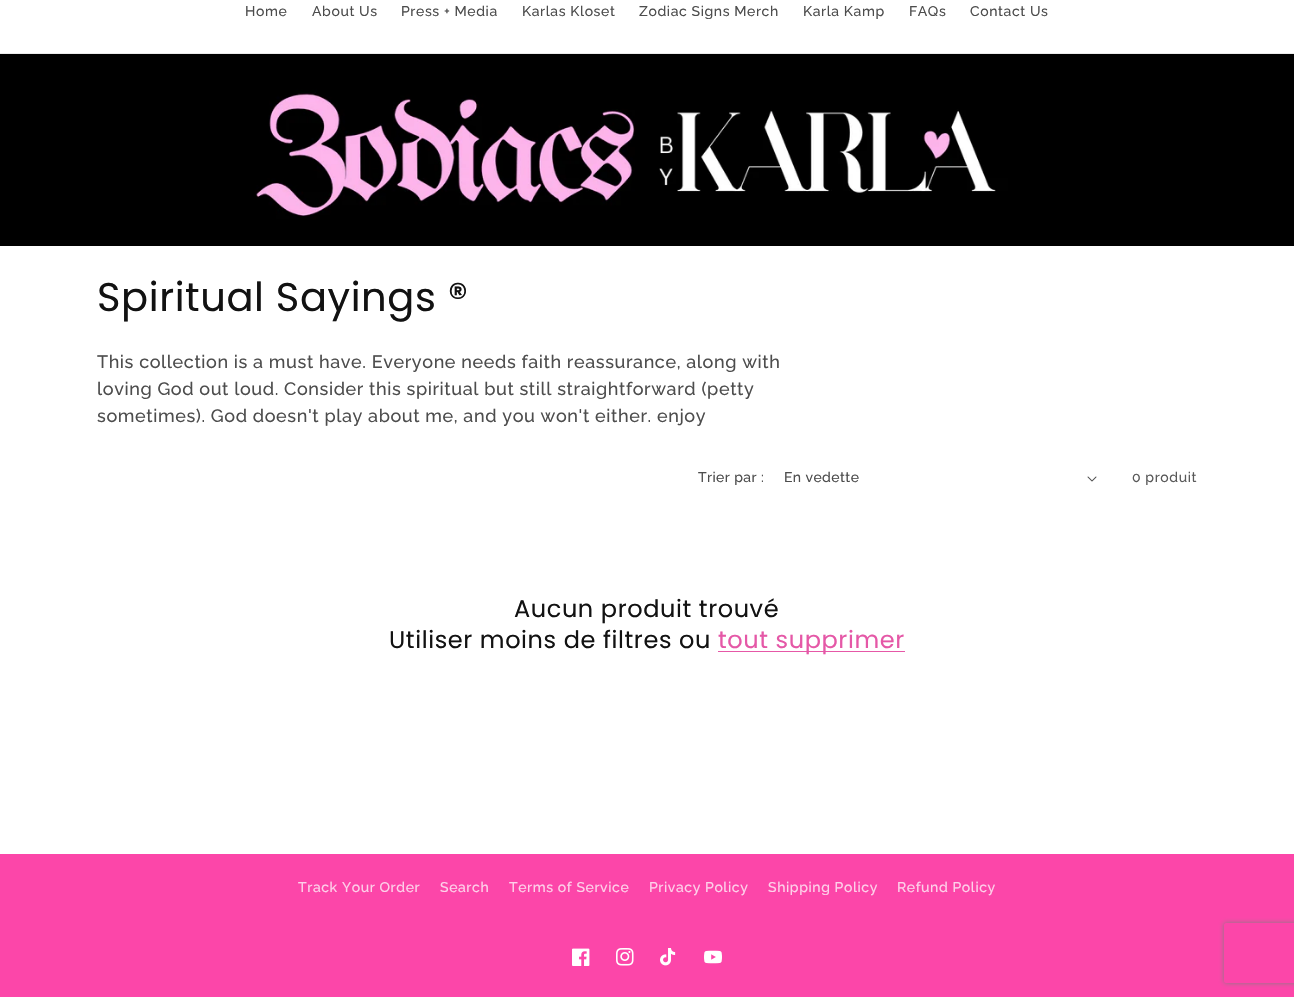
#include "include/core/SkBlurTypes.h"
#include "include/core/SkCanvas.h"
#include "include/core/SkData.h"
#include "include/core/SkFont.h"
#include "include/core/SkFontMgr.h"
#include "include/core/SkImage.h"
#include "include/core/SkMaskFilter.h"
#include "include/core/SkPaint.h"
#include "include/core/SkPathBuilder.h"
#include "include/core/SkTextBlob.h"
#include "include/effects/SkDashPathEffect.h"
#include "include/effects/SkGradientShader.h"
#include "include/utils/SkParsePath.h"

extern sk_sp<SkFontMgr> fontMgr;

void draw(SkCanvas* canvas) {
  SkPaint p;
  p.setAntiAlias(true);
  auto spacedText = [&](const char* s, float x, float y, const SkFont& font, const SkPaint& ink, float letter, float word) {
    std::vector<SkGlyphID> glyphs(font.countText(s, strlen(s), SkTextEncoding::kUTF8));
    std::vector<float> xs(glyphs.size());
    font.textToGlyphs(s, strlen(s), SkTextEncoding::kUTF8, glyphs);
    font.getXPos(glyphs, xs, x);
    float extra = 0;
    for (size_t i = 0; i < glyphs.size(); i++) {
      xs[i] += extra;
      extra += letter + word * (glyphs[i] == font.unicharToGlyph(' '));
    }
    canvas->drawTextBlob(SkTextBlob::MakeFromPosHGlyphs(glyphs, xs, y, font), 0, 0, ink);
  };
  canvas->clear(SK_ColorWHITE);
  p.setColor(SkColorSetRGB(236, 236, 236));
  canvas->drawRect(SkRect::MakeLTRB(0, 53, 1294, 54), p);
  canvas->drawImageRect(SkImages::DeferredFromEncodedData(SkData::MakeFromFileName("images/1.png")), SkRect::MakeLTRB(0, 54, 1294, 246), SkSamplingOptions());
  canvas->drawImageRect(SkImages::DeferredFromEncodedData(SkData::MakeFromFileName("images/2.png")), SkRect::MakeLTRB(1087, 476, 1097, 482), SkSamplingOptions());
  p.setColor(SkColorSetRGB(230, 88, 167));
  canvas->drawRect(SkRect::MakeLTRB(718, 651, 905, 652), p);
  p.setColor(SkColorSetRGB(252, 70, 169));
  canvas->drawRect(SkRect::MakeLTRB(0, 854, 1294, 997), p);
  canvas->drawImageRect(SkImages::DeferredFromEncodedData(SkData::MakeFromFileName("images/3.png")), SkRect::MakeLTRB(572, 948, 590, 966), SkSamplingOptions());
  canvas->drawImageRect(SkImages::DeferredFromEncodedData(SkData::MakeFromFileName("images/4.png")), SkRect::MakeLTRB(616, 948, 634, 966), SkSamplingOptions());
  canvas->drawImageRect(SkImages::DeferredFromEncodedData(SkData::MakeFromFileName("images/5.png")), SkRect::MakeLTRB(660, 948, 676, 966), SkSamplingOptions());
  canvas->drawImageRect(SkImages::DeferredFromEncodedData(SkData::MakeFromFileName("images/6.png")), SkRect::MakeLTRB(704, 950, 722, 964), SkSamplingOptions());
  canvas->save();
  canvas->clipPath(SkPathBuilder(SkPathFillType::kEvenOdd).moveTo(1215, 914).lineTo(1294, 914).lineTo(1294, 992).lineTo(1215, 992).close().moveTo(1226, 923).lineTo(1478, 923).cubicTo(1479, 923, 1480, 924, 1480, 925).lineTo(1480, 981).cubicTo(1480, 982, 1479, 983, 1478, 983).lineTo(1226, 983).cubicTo(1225, 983, 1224, 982, 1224, 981).lineTo(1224, 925).cubicTo(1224, 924, 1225, 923, 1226, 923).close().detach(), true);
  p.setColor(SkColorSetRGB(128, 128, 128));
  p.setMaskFilter(SkMaskFilter::MakeBlur(kNormal_SkBlurStyle, 2.5f));
  canvas->drawRoundRect(SkRect::MakeLTRB(1224, 923, 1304, 983), 2, 2, p);
  p.setMaskFilter(nullptr);
  canvas->restore();
  SkFont font1(fontMgr->matchFamilyStyle("Raleway", SkFontStyle(500, SkFontStyle::kNormal_Width, SkFontStyle::kUpright_Slant)), 14);
  font1.setSubpixel(true);
  p.setColor(SkColorSetRGB(77, 77, 77));
  spacedText("Home", 245, 16, font1, p, 0.6f, 0);
  spacedText("About Us", 312, 16, font1, p, 0.6f, 0);
  spacedText("Press + Media", 401, 16, font1, p, 0.6f, 0);
  spacedText("Karlas Kloset", 522, 16, font1, p, 0.6f, 0);
  spacedText("Zodiac Signs Merch", 639, 16, font1, p, 0.6f, 0);
  spacedText("Karla Kamp", 803, 16, font1, p, 0.6f, 0);
  spacedText("FAQs", 909, 16, font1, p, 0.6f, 0);
  spacedText("Contact Us", 970, 16, font1, p, 0.6f, 0);
  SkFont font2(fontMgr->matchFamilyStyle("Poppins", SkFontStyle::Normal()), 40);
  font2.setSubpixel(true);
  p.setColor(SkColorSetRGB(18, 18, 18));
  spacedText("Spiritual Sayings ®", 97, 311, font2, p, 0.6f, 0);
  SkFont font3(fontMgr->matchFamilyStyle("Raleway", SkFontStyle(500, SkFontStyle::kNormal_Width, SkFontStyle::kUpright_Slant)), 18);
  font3.setSubpixel(true);
  p.setColor(SkColorSetRGB(77, 77, 77));
  spacedText("This collection is a must have. Everyone needs faith reassurance, along with", 97, 368, font3, p, 0.6f, 0);
  spacedText("loving God out loud. Consider this spiritual but still straightforward (petty", 97, 395, font3, p, 0.6f, 0);
  spacedText("sometimes). God doesn't play about me, and you won't either. enjoy", 97, 422, font3, p, 0.6f, 0);
  spacedText("Trier par :", 698, 482, font1, p, 0.4f, 0);
  spacedText("En vedette", 784, 482, font1, p, 0.4f, 0);
  p.setColor(SkColorSetRGB(89, 89, 89));
  spacedText("0 produit", 1132, 482, font1, p, 0.6f, 0);
  SkFont font4(fontMgr->matchFamilyStyle("Poppins", SkFontStyle::Normal()), 24);
  font4.setSubpixel(true);
  p.setColor(SkColorSetRGB(18, 18, 18));
  spacedText("Aucun produit trouvé", 514, 617, font4, p, 0.6f, 0);
  spacedText("Utiliser moins de filtres ou", 389, 648, font4, p, 0.6f, 0);
  p.setColor(SkColorSetRGB(229, 88, 167));
  spacedText("tout supprimer", 718, 648, font4, p, 0.6f, 0);
  p.setColor(SkColorSetRGB(254, 209, 234));
  spacedText("Track Your Order", 298, 892, font1, p, 0.6f, 0);
  spacedText("Search", 440, 892, font1, p, 0.6f, 0);
  spacedText("Terms of Service", 509, 892, font1, p, 0.6f, 0);
  spacedText("Privacy Policy", 649, 892, font1, p, 0.6f, 0);
  spacedText("Shipping Policy", 768, 892, font1, p, 0.6f, 0);
  spacedText("Refund Policy", 897, 892, font1, p, 0.6f, 0);
}
